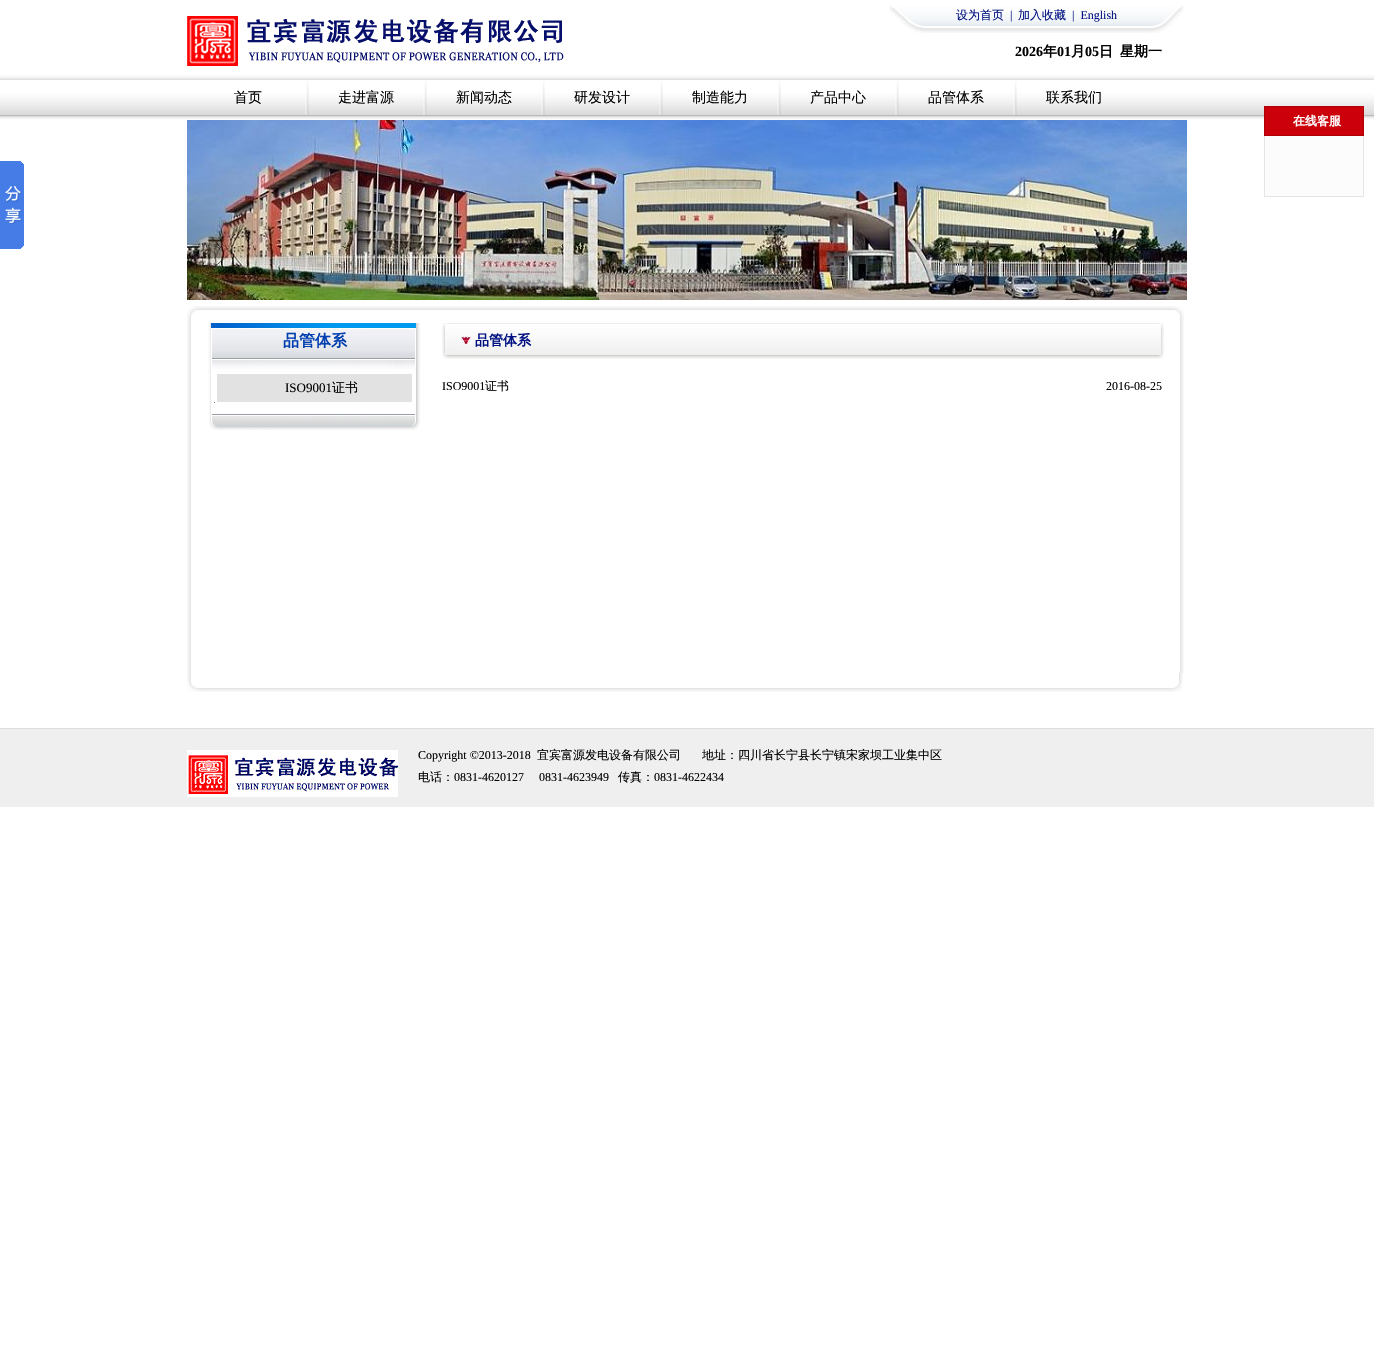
#include "include/core/SkBlurTypes.h"
#include "include/core/SkCanvas.h"
#include "include/core/SkData.h"
#include "include/core/SkFont.h"
#include "include/core/SkFontMgr.h"
#include "include/core/SkImage.h"
#include "include/core/SkMaskFilter.h"
#include "include/core/SkPaint.h"
#include "include/core/SkPathBuilder.h"
#include "include/core/SkTextBlob.h"
#include "include/effects/SkDashPathEffect.h"
#include "include/effects/SkGradientShader.h"
#include "include/utils/SkParsePath.h"

extern sk_sp<SkFontMgr> fontMgr;

void draw(SkCanvas* canvas) {
  SkPaint p;
  p.setAntiAlias(true);
  canvas->clear(SK_ColorWHITE);
  canvas->drawImageRect(SkImages::DeferredFromEncodedData(SkData::MakeFromFileName("images/1.png")), SkRect::MakeLTRB(187, 16, 564, 66), SkSamplingOptions());
  canvas->drawImageRect(SkImages::DeferredFromEncodedData(SkData::MakeFromFileName("images/2.png")), SkRect::MakeLTRB(889, 5, 1184, 33), SkSamplingOptions());
  canvas->drawImageRect(SkImages::DeferredFromEncodedData(SkData::MakeFromFileName("images/3.png")), SkRect::MakeLTRB(0, 75, 1374, 120), SkSamplingOptions());
  canvas->drawImageRect(SkImages::DeferredFromEncodedData(SkData::MakeFromFileName("images/4.png")), SkRect::MakeLTRB(305, 81, 309, 115), SkSamplingOptions());
  canvas->drawImageRect(SkImages::DeferredFromEncodedData(SkData::MakeFromFileName("images/4.png")), SkRect::MakeLTRB(423, 81, 427, 115), SkSamplingOptions());
  canvas->drawImageRect(SkImages::DeferredFromEncodedData(SkData::MakeFromFileName("images/4.png")), SkRect::MakeLTRB(541, 81, 545, 115), SkSamplingOptions());
  canvas->drawImageRect(SkImages::DeferredFromEncodedData(SkData::MakeFromFileName("images/4.png")), SkRect::MakeLTRB(659, 81, 663, 115), SkSamplingOptions());
  canvas->drawImageRect(SkImages::DeferredFromEncodedData(SkData::MakeFromFileName("images/4.png")), SkRect::MakeLTRB(777, 81, 781, 115), SkSamplingOptions());
  canvas->drawImageRect(SkImages::DeferredFromEncodedData(SkData::MakeFromFileName("images/4.png")), SkRect::MakeLTRB(895, 81, 899, 115), SkSamplingOptions());
  canvas->drawImageRect(SkImages::DeferredFromEncodedData(SkData::MakeFromFileName("images/4.png")), SkRect::MakeLTRB(1013, 81, 1017, 115), SkSamplingOptions());
  canvas->drawImageRect(SkImages::DeferredFromEncodedData(SkData::MakeFromFileName("images/5.png")), SkRect::MakeLTRB(0, 161, 24, 249), SkSamplingOptions());
  canvas->drawImageRect(SkImages::DeferredFromEncodedData(SkData::MakeFromFileName("images/6.png")), SkRect::MakeLTRB(187, 120, 1187, 300), SkSamplingOptions());
  p.setColor(SkColorSetRGB(203, 0, 10));
  canvas->drawRect(SkRect::MakeLTRB(1264.5f, 106.5f, 1363.5f, 135.5f), p);
  p.setStyle(SkPaint::kStroke_Style);
  p.setStrokeWidth(1);
  p.setColor(SkColorSetRGB(175, 0, 9));
  canvas->drawRect(SkRect::MakeLTRB(1264.5f, 106.5f, 1363.5f, 135.5f), p);
  p.setStyle(SkPaint::kFill_Style);
  p.setColor(SkColorSetRGB(252, 252, 252));
  canvas->drawRect(SkRect::MakeLTRB(1265, 136, 1363, 196), p);
  p.setColor(SkColorSetRGB(229, 229, 229));
  canvas->drawRect(SkRect::MakeLTRB(1363, 136, 1364, 197), p);
  canvas->drawRect(SkRect::MakeLTRB(1264, 196, 1364, 197), p);
  canvas->drawRect(SkRect::MakeLTRB(1264, 136, 1265, 197), p);
  canvas->drawImageRect(SkImages::DeferredFromEncodedData(SkData::MakeFromFileName("images/7.png")), SkRect::MakeLTRB(187, 306, 1184, 323), SkSamplingOptions());
  canvas->drawImageRect(SkImages::DeferredFromEncodedData(SkData::MakeFromFileName("images/8.png")), SkRect::MakeLTRB(187, 323, 1184, 673), SkSamplingOptions());
  canvas->drawImageRect(SkImages::DeferredFromEncodedData(SkData::MakeFromFileName("images/9.png")), SkRect::MakeLTRB(208, 323, 421, 374), SkSamplingOptions());
  canvas->drawImageRect(SkImages::DeferredFromEncodedData(SkData::MakeFromFileName("images/10.png")), SkRect::MakeLTRB(209, 374, 420, 403), SkSamplingOptions());
  p.setColor(SkColorSetRGB(226, 226, 226));
  canvas->drawRect(SkRect::MakeLTRB(217, 374, 412, 402), p);
  canvas->drawImageRect(SkImages::DeferredFromEncodedData(SkData::MakeFromFileName("images/11.png")), SkRect::MakeLTRB(214, 402, 215, 403), SkSamplingOptions());
  canvas->drawImageRect(SkImages::DeferredFromEncodedData(SkData::MakeFromFileName("images/12.png")), SkRect::MakeLTRB(209, 403, 420, 430), SkSamplingOptions());
  canvas->drawImageRect(SkImages::DeferredFromEncodedData(SkData::MakeFromFileName("images/13.png")), SkRect::MakeLTRB(442, 323, 1164, 359), SkSamplingOptions());
  canvas->drawImageRect(SkImages::DeferredFromEncodedData(SkData::MakeFromFileName("images/14.png")), SkRect::MakeLTRB(461, 336, 471, 345), SkSamplingOptions());
  canvas->drawImageRect(SkImages::DeferredFromEncodedData(SkData::MakeFromFileName("images/15.png")), SkRect::MakeLTRB(187, 673, 1183, 692), SkSamplingOptions());
  p.setColor(SkColorSetRGB(239, 239, 239));
  canvas->drawRect(SkRect::MakeLTRB(0, 729, 1374, 807), p);
  p.setColor(SkColorSetRGB(221, 221, 221));
  canvas->drawRect(SkRect::MakeLTRB(0, 728, 1374, 729), p);
  canvas->drawImageRect(SkImages::DeferredFromEncodedData(SkData::MakeFromFileName("images/16.png")), SkRect::MakeLTRB(187, 750, 398, 797), SkSamplingOptions());
  SkFont font1(fontMgr->matchFamilyStyle("WenQuanYi Zen Hei", SkFontStyle(500, SkFontStyle::kNormal_Width, SkFontStyle::kUpright_Slant)), 12);
  font1.setSubpixel(true);
  p.setColor(SkColorSetRGB(0, 16, 128));
  canvas->drawString("设为首页", 956, 19, font1, p);
  SkFont font2(fontMgr->matchFamilyStyle("Liberation Serif", SkFontStyle::Normal()), 12);
  font2.setSubpixel(true);
  canvas->drawString("|", 1010, 19, font2, p);
  canvas->drawString("加入收藏", 1018, 19, font1, p);
  canvas->drawString("|  English", 1072, 19, font2, p);
  SkFont font3(fontMgr->matchFamilyStyle("Liberation Serif", SkFontStyle::Bold()), 14);
  font3.setSubpixel(true);
  p.setColor(SK_ColorBLACK);
  canvas->drawString("2026", 1015, 56, font3, p);
  SkFont font4(fontMgr->matchFamilyStyle("WenQuanYi Zen Hei", SkFontStyle::Bold()), 14);
  font4.setSubpixel(true);
  canvas->drawString("年", 1043, 56, font4, p);
  canvas->drawString("01", 1057, 56, font3, p);
  canvas->drawString("月", 1071, 56, font4, p);
  canvas->drawString("05", 1085, 56, font3, p);
  canvas->drawString("日", 1099, 56, font4, p);
  canvas->drawString("星期一", 1120, 56, font4, p);
  SkFont font5(fontMgr->matchFamilyStyle("WenQuanYi Zen Hei", SkFontStyle(500, SkFontStyle::kNormal_Width, SkFontStyle::kUpright_Slant)), 14);
  font5.setSubpixel(true);
  canvas->drawString("首页", 234, 102, font5, p);
  canvas->drawString("走进富源", 338, 102, font5, p);
  canvas->drawString("新闻动态", 456, 102, font5, p);
  canvas->drawString("研发设计", 574, 102, font5, p);
  canvas->drawString("制造能力", 692, 102, font5, p);
  canvas->drawString("产品中心", 810, 102, font5, p);
  canvas->drawString("品管体系", 928, 102, font5, p);
  canvas->drawString("联系我们", 1046, 102, font5, p);
  SkFont font6(fontMgr->matchFamilyStyle("WenQuanYi Zen Hei", SkFontStyle::Bold()), 12);
  font6.setSubpixel(true);
  p.setColor(SK_ColorWHITE);
  canvas->drawString("在线客服", 1293, 125, font6, p);
  SkFont font7(fontMgr->matchFamilyStyle("WenQuanYi Zen Hei", SkFontStyle::Bold()), 16);
  font7.setSubpixel(true);
  p.setColor(SkColorSetRGB(0, 63, 176));
  canvas->drawString("品管体系", 283, 346, font7, p);
  SkFont font8(fontMgr->matchFamilyStyle("Liberation Serif", SkFontStyle::Normal()), 13);
  font8.setSubpixel(true);
  p.setColor(SK_ColorBLACK);
  canvas->drawString("ISO9001", 285, 392, font8, p);
  SkFont font9(fontMgr->matchFamilyStyle("WenQuanYi Zen Hei", SkFontStyle(500, SkFontStyle::kNormal_Width, SkFontStyle::kUpright_Slant)), 13);
  font9.setSubpixel(true);
  canvas->drawString("证书", 332, 392, font9, p);
  p.setColor(SkColorSetRGB(0, 16, 128));
  canvas->drawString("品管体系", 475, 345, font4, p);
  p.setColor(SK_ColorBLACK);
  canvas->drawString("ISO9001", 442, 390, font2, p);
  canvas->drawString("证书", 485, 390, font1, p);
  canvas->drawString("2016-08-25", 1106, 390, font2, p);
  canvas->drawString("Copyright ©2013-2018", 418, 759, font2, p);
  canvas->drawString("宜宾富源发电设备有限公司", 537, 759, font1, p);
  canvas->drawString("地址：四川省长宁县长宁镇宋家坝工业集中区", 702, 759, font1, p);
  canvas->drawString("电话：", 418, 781, font1, p);
  canvas->drawString("0831-4620127", 454, 781, font2, p);
  canvas->drawString("0831-4623949", 539, 781, font2, p);
  canvas->drawString("传真：", 618, 781, font1, p);
  canvas->drawString("0831-4622434", 654, 781, font2, p);
}
